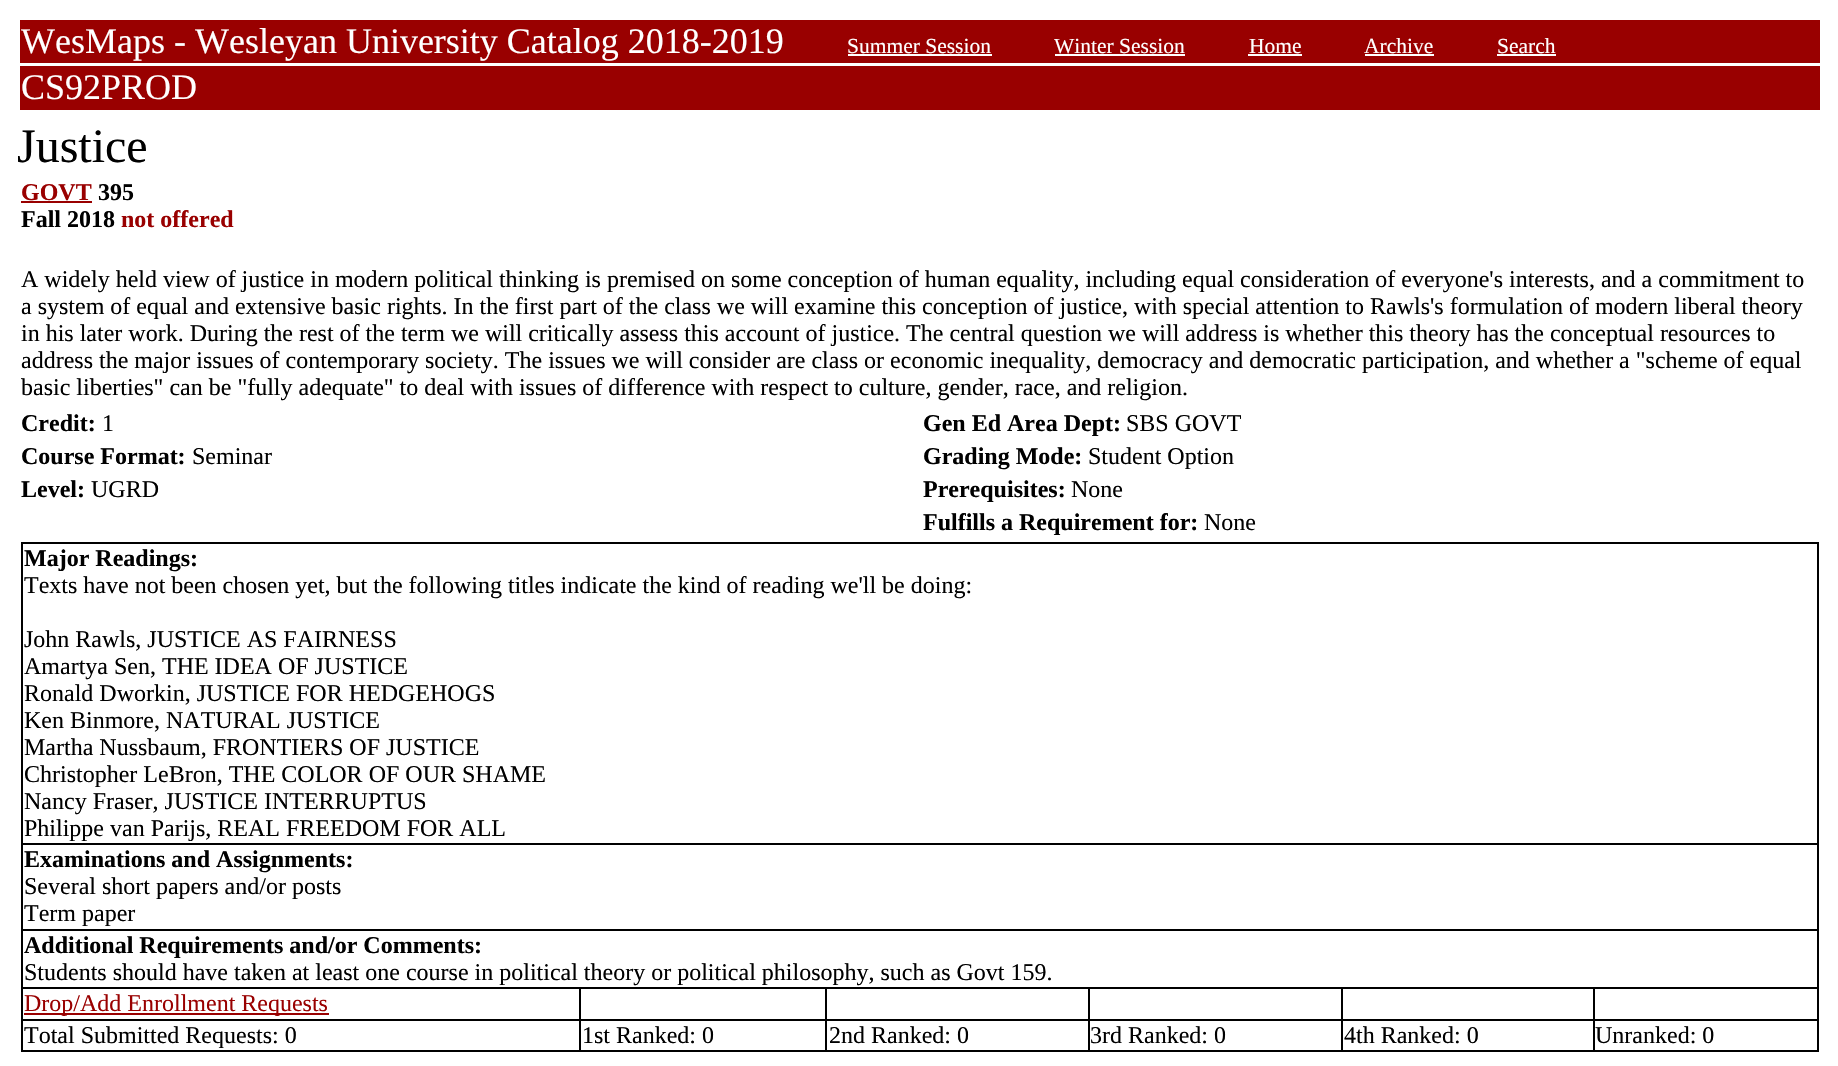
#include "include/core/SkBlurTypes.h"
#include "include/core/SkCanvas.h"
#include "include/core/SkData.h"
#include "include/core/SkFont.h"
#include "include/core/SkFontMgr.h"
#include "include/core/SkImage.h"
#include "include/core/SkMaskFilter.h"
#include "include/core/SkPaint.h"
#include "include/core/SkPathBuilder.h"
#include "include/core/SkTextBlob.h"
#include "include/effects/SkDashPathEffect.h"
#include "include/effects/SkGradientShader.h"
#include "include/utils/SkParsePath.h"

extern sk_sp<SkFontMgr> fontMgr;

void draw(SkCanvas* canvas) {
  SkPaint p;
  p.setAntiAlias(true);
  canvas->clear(SK_ColorWHITE);
  p.setColor(SkColorSetRGB(153, 0, 0));
  canvas->drawRect(SkRect::MakeLTRB(20, 20, 1820, 63), p);
  p.setColor(SK_ColorWHITE);
  canvas->drawRect(SkRect::MakeLTRB(848, 54, 992, 56), p);
  canvas->drawRect(SkRect::MakeLTRB(1055, 54, 1185, 56), p);
  canvas->drawRect(SkRect::MakeLTRB(1248, 54, 1302, 56), p);
  canvas->drawRect(SkRect::MakeLTRB(1365, 54, 1434, 56), p);
  canvas->drawRect(SkRect::MakeLTRB(1497, 54, 1556, 56), p);
  p.setColor(SkColorSetRGB(153, 0, 0));
  canvas->drawRect(SkRect::MakeLTRB(20, 66, 1820, 110), p);
  canvas->drawRect(SkRect::MakeLTRB(21, 201, 92, 203), p);
  p.setColor(SK_ColorBLACK);
  canvas->drawRect(SkRect::MakeLTRB(21, 542, 1818, 544), p);
  canvas->drawRect(SkRect::MakeLTRB(1817, 542, 1819, 1052), p);
  canvas->drawRect(SkRect::MakeLTRB(21, 1050, 1818, 1052), p);
  canvas->drawRect(SkRect::MakeLTRB(21, 542, 23, 1052), p);
  canvas->drawRect(SkRect::MakeLTRB(21, 843, 1818, 845), p);
  canvas->drawRect(SkRect::MakeLTRB(21, 929, 1818, 931), p);
  canvas->drawRect(SkRect::MakeLTRB(1593, 987, 1818, 989), p);
  canvas->drawRect(SkRect::MakeLTRB(1593, 1019, 1818, 1021), p);
  canvas->drawRect(SkRect::MakeLTRB(1593, 1019, 1595, 1052), p);
  canvas->drawRect(SkRect::MakeLTRB(1341, 1019, 1595, 1021), p);
  canvas->drawRect(SkRect::MakeLTRB(1593, 987, 1595, 1020), p);
  canvas->drawRect(SkRect::MakeLTRB(1341, 987, 1595, 989), p);
  canvas->drawRect(SkRect::MakeLTRB(1341, 1019, 1343, 1052), p);
  canvas->drawRect(SkRect::MakeLTRB(1088, 1019, 1343, 1021), p);
  canvas->drawRect(SkRect::MakeLTRB(1341, 987, 1343, 1020), p);
  canvas->drawRect(SkRect::MakeLTRB(1088, 987, 1343, 989), p);
  canvas->drawRect(SkRect::MakeLTRB(1088, 1019, 1090, 1052), p);
  canvas->drawRect(SkRect::MakeLTRB(825, 1019, 1089, 1021), p);
  canvas->drawRect(SkRect::MakeLTRB(1088, 987, 1090, 1020), p);
  canvas->drawRect(SkRect::MakeLTRB(825, 987, 1089, 989), p);
  canvas->drawRect(SkRect::MakeLTRB(825, 1019, 827, 1052), p);
  canvas->drawRect(SkRect::MakeLTRB(579, 1019, 827, 1021), p);
  canvas->drawRect(SkRect::MakeLTRB(825, 987, 827, 1020), p);
  canvas->drawRect(SkRect::MakeLTRB(579, 987, 827, 989), p);
  canvas->drawRect(SkRect::MakeLTRB(579, 1019, 581, 1052), p);
  canvas->drawRect(SkRect::MakeLTRB(21, 1019, 581, 1021), p);
  canvas->drawRect(SkRect::MakeLTRB(579, 987, 581, 1020), p);
  canvas->drawRect(SkRect::MakeLTRB(21, 987, 581, 989), p);
  p.setColor(SkColorSetRGB(153, 0, 0));
  canvas->drawRect(SkRect::MakeLTRB(24, 1013, 329, 1015), p);
  SkFont font1(fontMgr->matchFamilyStyle("Liberation Serif", SkFontStyle::Normal()), 36);
  font1.setSubpixel(true);
  p.setColor(SK_ColorWHITE);
  canvas->drawString("WesMaps - Wesleyan University Catalog 2018-2019", 21, 53, font1, p);
  SkFont font2(fontMgr->matchFamilyStyle("Liberation Serif", SkFontStyle::Normal()), 21.5f);
  font2.setSubpixel(true);
  canvas->drawString("Summer Session", 847, 53, font2, p);
  canvas->drawString("Winter Session", 1054, 53, font2, p);
  canvas->drawString("Home", 1249, 53, font2, p);
  canvas->drawString("Archive", 1364, 53, font2, p);
  canvas->drawString("Search", 1497, 53, font2, p);
  canvas->drawString("CS92PROD", 21, 99, font1, p);
  SkFont font3(fontMgr->matchFamilyStyle("Liberation Serif", SkFontStyle::Normal()), 48);
  font3.setSubpixel(true);
  p.setColor(SK_ColorBLACK);
  canvas->drawString("Justice", 17, 162, font3, p);
  SkFont font4(fontMgr->matchFamilyStyle("Liberation Serif", SkFontStyle::Bold()), 24);
  font4.setSubpixel(true);
  p.setColor(SkColorSetRGB(153, 0, 0));
  canvas->drawString("GOVT", 21, 200, font4, p);
  p.setColor(SK_ColorBLACK);
  canvas->drawString("395", 98, 200, font4, p);
  canvas->drawString("Fall 2018", 21, 227, font4, p);
  p.setColor(SkColorSetRGB(153, 0, 0));
  canvas->drawString("not offered", 121, 227, font4, p);
  SkFont font5(fontMgr->matchFamilyStyle("Liberation Serif", SkFontStyle::Normal()), 24);
  font5.setSubpixel(true);
  p.setColor(SK_ColorBLACK);
  canvas->drawString("A widely held view of justice in modern political thinking is premised on some conception of human equality, including equal consideration of everyone's interests, and a commitment to", 21, 287, font5, p);
  canvas->drawString("a system of equal and extensive basic rights. In the first part of the class we will examine this conception of justice, with special attention to Rawls's formulation of modern liberal theory", 21, 314, font5, p);
  canvas->drawString("in his later work. During the rest of the term we will critically assess this account of justice. The central question we will address is whether this theory has the conceptual resources to", 21, 341, font5, p);
  canvas->drawString("address the major issues of contemporary society. The issues we will consider are class or economic inequality, democracy and democratic participation, and whether a \"scheme of equal", 21, 368, font5, p);
  canvas->drawString("basic liberties\" can be \"fully adequate\" to deal with issues of difference with respect to culture, gender, race, and religion.", 21, 395, font5, p);
  canvas->drawString("Credit:", 21, 431, font4, p);
  canvas->drawString("1", 102, 431, font5, p);
  canvas->drawString("Gen Ed Area Dept:", 923, 431, font4, p);
  canvas->drawString("SBS GOVT", 1126, 431, font5, p);
  canvas->drawString("Course Format:", 21, 464, font4, p);
  canvas->drawString("Seminar", 192, 464, font5, p);
  canvas->drawString("Grading Mode:", 923, 464, font4, p);
  canvas->drawString("Student Option", 1088, 464, font5, p);
  canvas->drawString("Level:", 21, 497, font4, p);
  canvas->drawString("UGRD", 91, 497, font5, p);
  canvas->drawString("Prerequisites:", 923, 497, font4, p);
  canvas->drawString("None", 1071, 497, font5, p);
  canvas->drawString("Fulfills a Requirement for:", 923, 530, font4, p);
  canvas->drawString("None", 1204, 530, font5, p);
  canvas->drawString("Major Readings:", 24, 566, font4, p);
  canvas->drawString("Texts have not been chosen yet, but the following titles indicate the kind of reading we'll be doing:", 24, 593, font5, p);
  canvas->drawString("John Rawls, JUSTICE AS FAIRNESS", 24, 647, font5, p);
  canvas->drawString("Amartya Sen, THE IDEA OF JUSTICE", 24, 674, font5, p);
  canvas->drawString("Ronald Dworkin, JUSTICE FOR HEDGEHOGS", 24, 701, font5, p);
  canvas->drawString("Ken Binmore, NATURAL JUSTICE", 24, 728, font5, p);
  canvas->drawString("Martha Nussbaum, FRONTIERS OF JUSTICE", 24, 755, font5, p);
  canvas->drawString("Christopher LeBron, THE COLOR OF OUR SHAME", 24, 782, font5, p);
  canvas->drawString("Nancy Fraser, JUSTICE INTERRUPTUS", 24, 809, font5, p);
  canvas->drawString("Philippe van Parijs, REAL FREEDOM FOR ALL", 24, 836, font5, p);
  canvas->drawString("Examinations and Assignments:", 24, 867, font4, p);
  canvas->drawString("Several short papers and/or posts", 24, 894, font5, p);
  canvas->drawString("Term paper", 24, 921, font5, p);
  canvas->drawString("Additional Requirements and/or Comments:", 24, 953, font4, p);
  canvas->drawString("Students should have taken at least one course in political theory or political philosophy, such as Govt 159.", 24, 980, font5, p);
  p.setColor(SkColorSetRGB(153, 0, 0));
  canvas->drawString("Drop/Add Enrollment Requests", 24, 1011, font5, p);
  p.setColor(SK_ColorBLACK);
  canvas->drawString("Total Submitted Requests: 0", 24, 1043, font5, p);
  canvas->drawString("1st Ranked: 0", 582, 1043, font5, p);
  canvas->drawString("2nd Ranked: 0", 829, 1043, font5, p);
  canvas->drawString("3rd Ranked: 0", 1090, 1043, font5, p);
  canvas->drawString("4th Ranked: 0", 1344, 1043, font5, p);
  canvas->drawString("Unranked: 0", 1595, 1043, font5, p);
}
